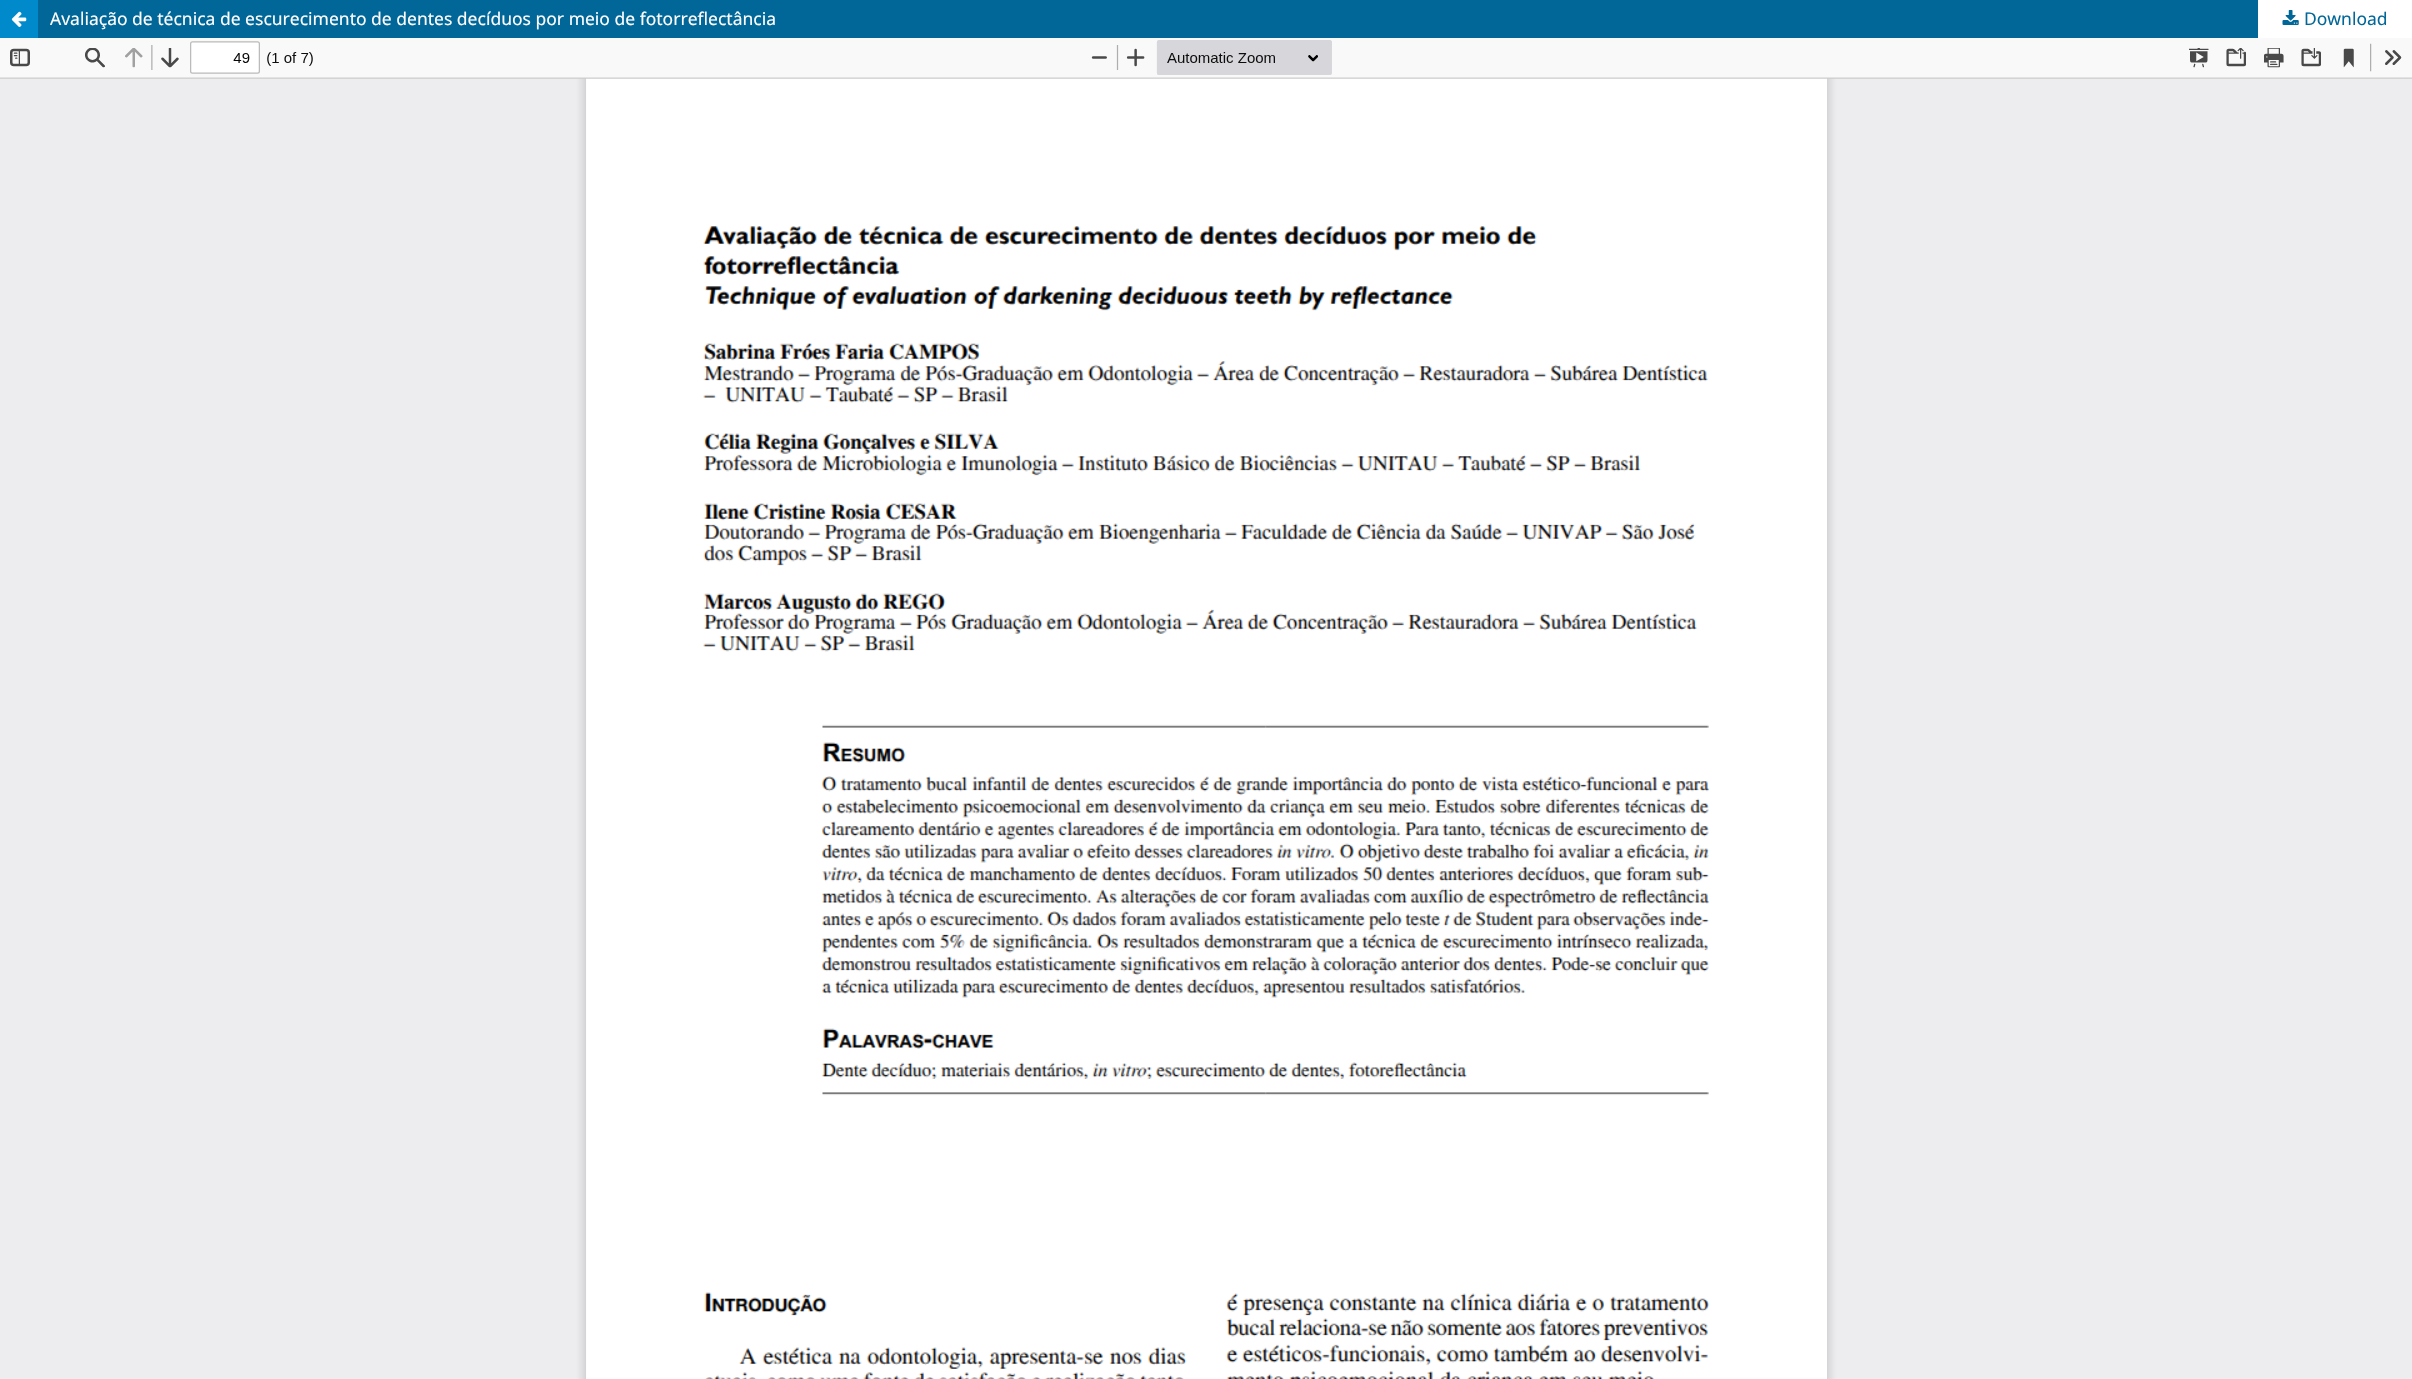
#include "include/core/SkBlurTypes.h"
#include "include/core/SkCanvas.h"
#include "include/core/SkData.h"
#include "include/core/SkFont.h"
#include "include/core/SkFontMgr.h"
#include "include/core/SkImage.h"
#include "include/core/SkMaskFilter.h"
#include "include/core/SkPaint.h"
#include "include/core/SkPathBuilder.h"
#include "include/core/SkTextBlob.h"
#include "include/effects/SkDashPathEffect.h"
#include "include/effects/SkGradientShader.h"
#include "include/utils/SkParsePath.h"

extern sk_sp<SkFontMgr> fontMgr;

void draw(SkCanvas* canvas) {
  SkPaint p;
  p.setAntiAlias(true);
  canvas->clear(SK_ColorWHITE);
  p.setColor(SkColorSetRGB(0, 103, 152));
  canvas->drawRect(SkRect::MakeLTRB(38, 0, 2258, 38), p);
  p.setColor(SkColorSetRGB(0, 138, 203));
  canvas->drawRect(SkRect::MakeLTRB(0, 0, 38, 38), p);
  canvas->drawImageRect(SkImages::DeferredFromEncodedData(SkData::MakeFromFileName("images/1.png")), SkRect::MakeLTRB(11, 11, 27, 27), SkSamplingOptions());
  canvas->drawImageRect(SkImages::DeferredFromEncodedData(SkData::MakeFromFileName("images/2.png")), SkRect::MakeLTRB(2282, 10, 2299, 25), SkSamplingOptions());
  canvas->drawImageRect(SkImages::DeferredFromEncodedData(SkData::MakeFromFileName("images/3.png")), SkRect::MakeLTRB(0, 38, 2412, 1379), SkSamplingOptions());
  SkFont font1(fontMgr->matchFamilyStyle("Noto Sans", SkFontStyle::Normal()), 17.5f);
  font1.setSubpixel(true);
  p.setColor(SK_ColorWHITE);
  canvas->drawString("Avaliação de técnica de escurecimento de dentes decíduos por meio de fotorreflectância", 50, 25, font1, p);
  p.setColor(SkColorSetRGB(0, 103, 152));
  canvas->drawString("Download", 2304, 25, font1, p);
}
